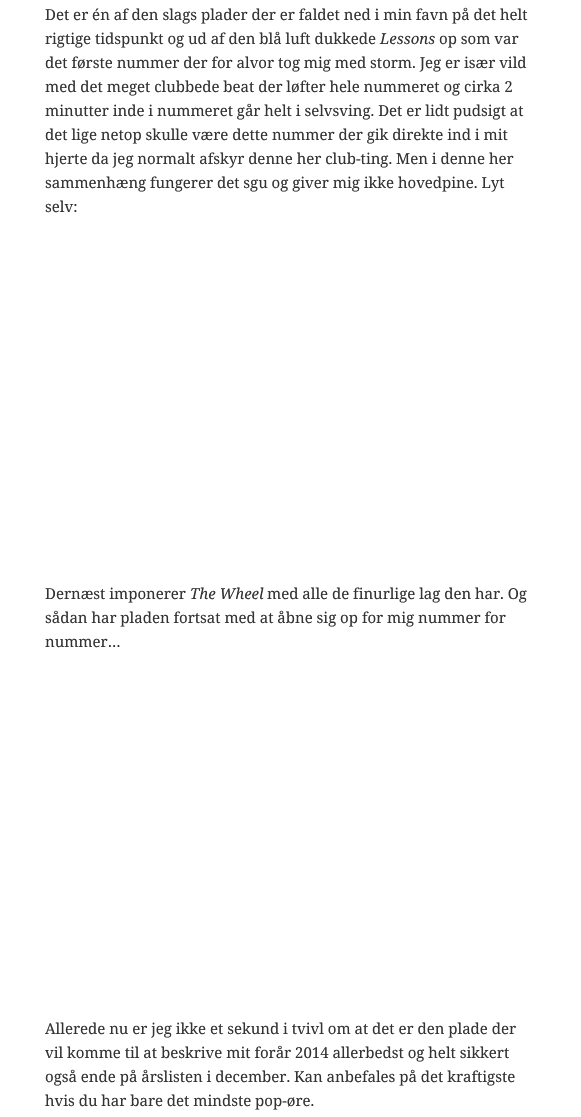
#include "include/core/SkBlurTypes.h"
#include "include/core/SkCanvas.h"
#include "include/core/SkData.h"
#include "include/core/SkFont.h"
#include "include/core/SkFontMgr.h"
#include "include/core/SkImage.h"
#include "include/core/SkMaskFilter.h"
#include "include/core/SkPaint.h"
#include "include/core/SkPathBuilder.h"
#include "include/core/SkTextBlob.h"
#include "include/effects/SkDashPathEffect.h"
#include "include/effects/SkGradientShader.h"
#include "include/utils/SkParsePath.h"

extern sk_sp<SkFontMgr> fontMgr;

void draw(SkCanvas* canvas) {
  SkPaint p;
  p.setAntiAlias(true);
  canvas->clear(SK_ColorWHITE);
  SkFont font1(fontMgr->matchFamilyStyle("Noto Serif", SkFontStyle::Normal()), 15);
  font1.setSubpixel(true);
  p.setColor(SkColorSetRGB(51, 51, 51));
  canvas->drawString("Det er én af den slags plader der er faldet ned i min favn på det helt", 45, 20, font1, p);
  canvas->drawString("rigtige tidspunkt og ud af den blå luft dukkede", 45, 44, font1, p);
  SkFont font2(fontMgr->matchFamilyStyle("Noto Serif", SkFontStyle::Italic()), 15);
  font2.setSubpixel(true);
  canvas->drawString("Lessons", 380, 44, font2, p);
  canvas->drawString("op som var", 439, 44, font1, p);
  canvas->drawString("det første nummer der for alvor tog mig med storm. Jeg er især vild", 45, 68, font1, p);
  canvas->drawString("med det meget clubbede beat der løfter hele nummeret og cirka 2", 45, 92, font1, p);
  canvas->drawString("minutter inde i nummeret går helt i selvsving. Det er lidt pudsigt at", 45, 116, font1, p);
  canvas->drawString("det lige netop skulle være dette nummer der gik direkte ind i mit", 45, 140, font1, p);
  canvas->drawString("hjerte da jeg normalt afskyr denne her club-ting. Men i denne her", 45, 164, font1, p);
  canvas->drawString("sammenhæng fungerer det sgu og giver mig ikke hovedpine. Lyt", 45, 188, font1, p);
  canvas->drawString("selv:", 45, 212, font1, p);
  canvas->drawString("Dernæst imponerer", 45, 599, font1, p);
  canvas->drawString("The Wheel", 190, 599, font2, p);
  canvas->drawString("med alle de finurlige lag den har. Og", 267, 599, font1, p);
  canvas->drawString("sådan har pladen fortsat med at åbne sig op for mig nummer for", 45, 623, font1, p);
  canvas->drawString("nummer…", 45, 647, font1, p);
  canvas->drawString("Allerede nu er jeg ikke et sekund i tvivl om at det er den plade der", 45, 1034, font1, p);
  canvas->drawString("vil komme til at beskrive mit forår 2014 allerbedst og helt sikkert", 45, 1058, font1, p);
  canvas->drawString("også ende på årslisten i december. Kan anbefales på det kraftigste", 45, 1082, font1, p);
  canvas->drawString("hvis du har bare det mindste pop-øre.", 45, 1106, font1, p);
}
